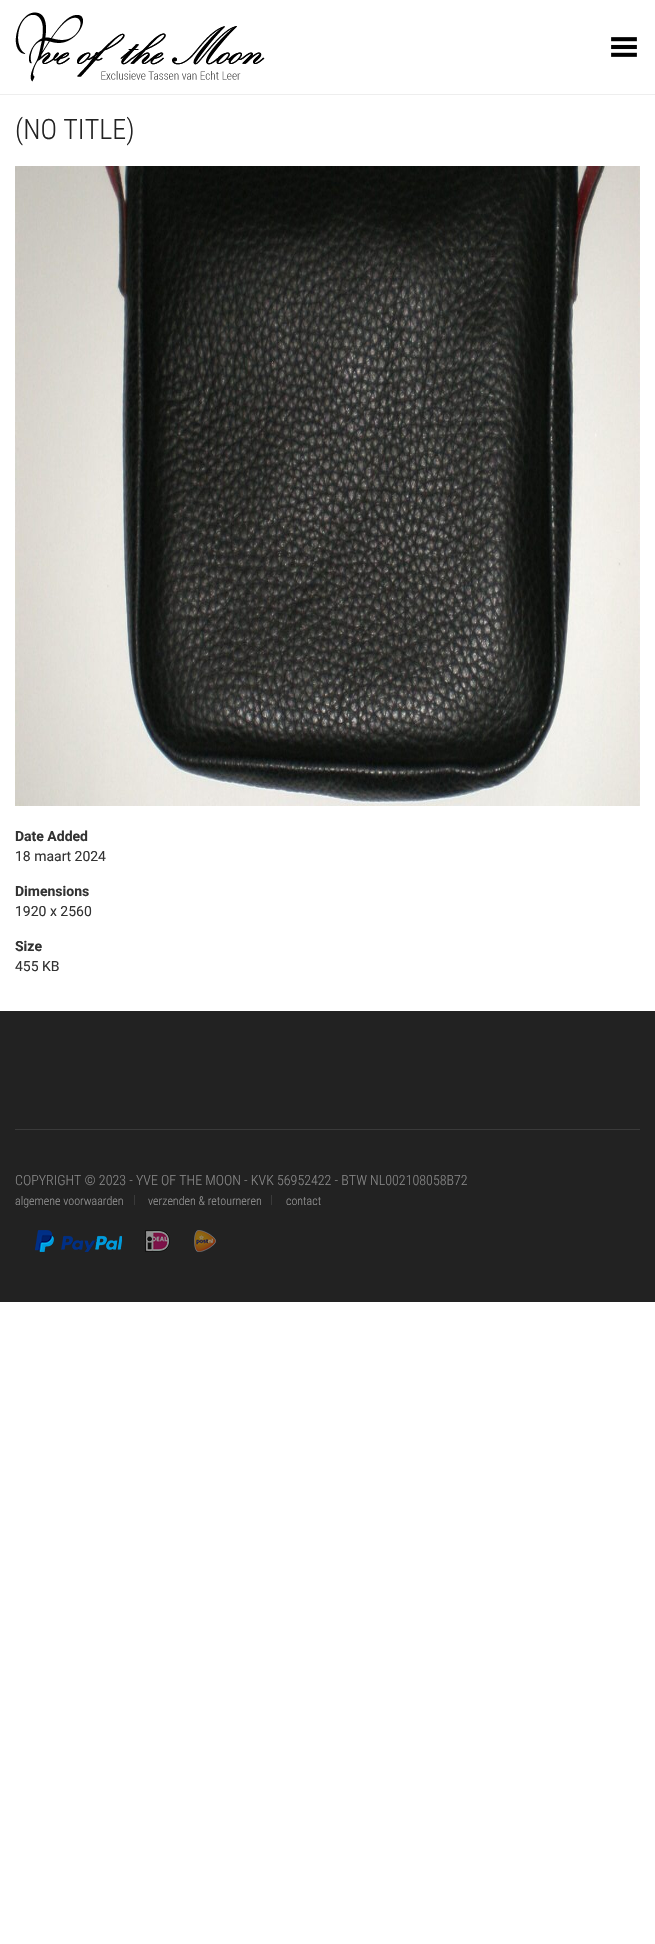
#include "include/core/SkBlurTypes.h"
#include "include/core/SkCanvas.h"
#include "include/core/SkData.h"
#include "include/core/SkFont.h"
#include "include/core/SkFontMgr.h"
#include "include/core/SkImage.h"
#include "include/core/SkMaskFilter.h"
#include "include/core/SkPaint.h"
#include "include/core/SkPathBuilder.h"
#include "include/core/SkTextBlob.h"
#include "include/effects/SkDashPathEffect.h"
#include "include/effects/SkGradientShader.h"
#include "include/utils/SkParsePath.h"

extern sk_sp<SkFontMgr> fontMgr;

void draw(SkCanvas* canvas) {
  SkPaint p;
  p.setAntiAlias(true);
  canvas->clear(SK_ColorWHITE);
  p.setColor(SkColorSetRGB(238, 238, 238));
  canvas->drawRect(SkRect::MakeLTRB(0, 94, 655, 95), p);
  canvas->drawImageRect(SkImages::DeferredFromEncodedData(SkData::MakeFromFileName("images/1.png")), SkRect::MakeLTRB(15, 12, 265, 82), SkSamplingOptions());
  canvas->drawImageRect(SkImages::DeferredFromEncodedData(SkData::MakeFromFileName("images/2.png")), SkRect::MakeLTRB(611, 37, 637, 57), SkSamplingOptions());
  canvas->drawImageRect(SkImages::DeferredFromEncodedData(SkData::MakeFromFileName("images/3.png")), SkRect::MakeLTRB(15, 166, 640, 806), SkSamplingOptions());
  p.setColor(SkColorSetRGB(34, 34, 34));
  canvas->drawRect(SkRect::MakeLTRB(0, 1011, 655, 1302), p);
  p.setColor(SkColorSetRGB(58, 58, 58));
  canvas->drawRect(SkRect::MakeLTRB(15, 1129, 640, 1130), p);
  canvas->drawRect(SkRect::MakeLTRB(134, 1195, 135, 1205), p);
  canvas->drawRect(SkRect::MakeLTRB(271, 1195, 272, 1205), p);
  canvas->drawImageRect(SkImages::DeferredFromEncodedData(SkData::MakeFromFileName("images/4.png")), SkRect::MakeLTRB(35, 1230, 122, 1252), SkSamplingOptions());
  canvas->drawImageRect(SkImages::DeferredFromEncodedData(SkData::MakeFromFileName("images/5.png")), SkRect::MakeLTRB(145, 1230, 170, 1252), SkSamplingOptions());
  canvas->drawImageRect(SkImages::DeferredFromEncodedData(SkData::MakeFromFileName("images/6.png")), SkRect::MakeLTRB(194, 1230, 216, 1252), SkSamplingOptions());
  SkFont font1(fontMgr->matchFamilyStyle("Roboto Condensed", SkFontStyle(300, SkFontStyle::kNormal_Width, SkFontStyle::kUpright_Slant)), 28);
  font1.setSubpixel(true);
  p.setColor(SkColorSetRGB(34, 34, 34));
  canvas->drawString("(NO TITLE)", 15, 139, font1, p);
  SkFont font2(fontMgr->matchFamilyStyle("Roboto", SkFontStyle::Bold()), 14);
  font2.setSubpixel(true);
  p.setColor(SkColorSetRGB(51, 51, 51));
  canvas->drawString("Date Added", 15, 841, font2, p);
  SkFont font3(fontMgr->matchFamilyStyle("Roboto", SkFontStyle::Normal()), 14);
  font3.setSubpixel(true);
  canvas->drawString("18 maart 2024", 15, 861, font3, p);
  canvas->drawString("Dimensions", 15, 896, font2, p);
  canvas->drawString("1920 x 2560", 15, 916, font3, p);
  canvas->drawString("Size", 15, 951, font2, p);
  canvas->drawString("455 KB", 15, 971, font3, p);
  SkFont font4(fontMgr->matchFamilyStyle("Roboto Condensed", SkFontStyle(300, SkFontStyle::kNormal_Width, SkFontStyle::kUpright_Slant)), 14);
  font4.setSubpixel(true);
  p.setColor(SkColorSetRGB(136, 136, 136));
  canvas->drawString("COPYRIGHT © 2023 - YVE OF THE MOON - KVK 56952422 - BTW NL002108058B72", 15, 1185, font4, p);
  SkFont font5(fontMgr->matchFamilyStyle("Roboto Condensed", SkFontStyle(300, SkFontStyle::kNormal_Width, SkFontStyle::kUpright_Slant)), 12);
  font5.setSubpixel(true);
  p.setColor(SkColorSetRGB(149, 149, 149));
  canvas->drawString("algemene voorwaarden", 15, 1205, font5, p);
  canvas->drawString("verzenden & retourneren", 148, 1205, font5, p);
  canvas->drawString("contact", 286, 1205, font5, p);
}
